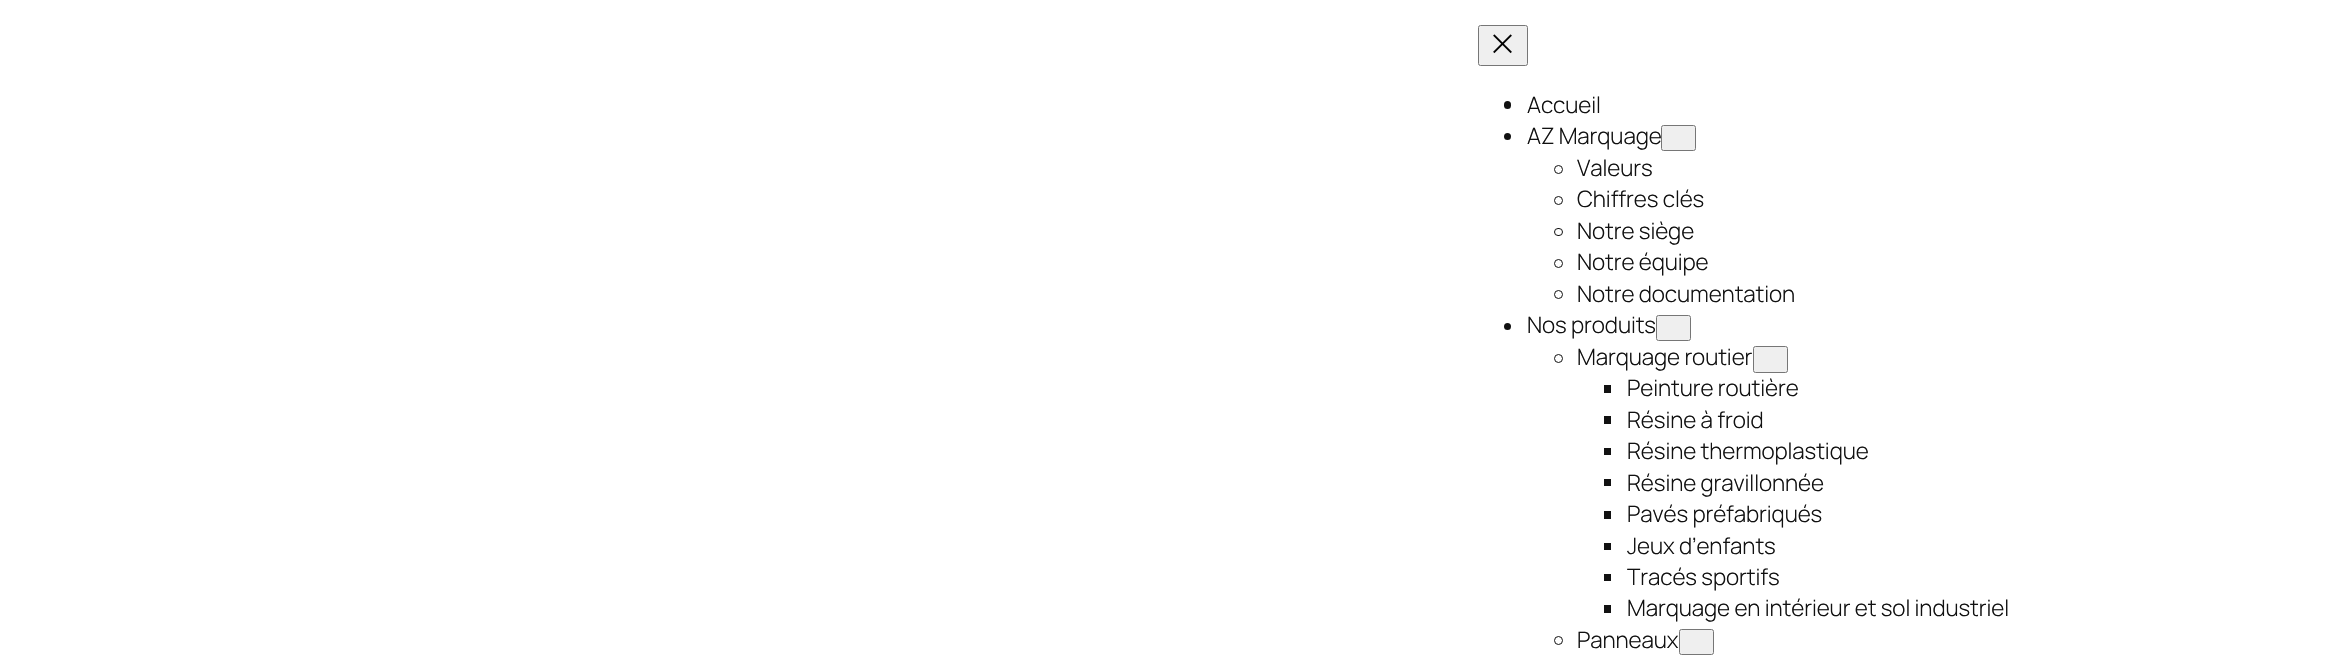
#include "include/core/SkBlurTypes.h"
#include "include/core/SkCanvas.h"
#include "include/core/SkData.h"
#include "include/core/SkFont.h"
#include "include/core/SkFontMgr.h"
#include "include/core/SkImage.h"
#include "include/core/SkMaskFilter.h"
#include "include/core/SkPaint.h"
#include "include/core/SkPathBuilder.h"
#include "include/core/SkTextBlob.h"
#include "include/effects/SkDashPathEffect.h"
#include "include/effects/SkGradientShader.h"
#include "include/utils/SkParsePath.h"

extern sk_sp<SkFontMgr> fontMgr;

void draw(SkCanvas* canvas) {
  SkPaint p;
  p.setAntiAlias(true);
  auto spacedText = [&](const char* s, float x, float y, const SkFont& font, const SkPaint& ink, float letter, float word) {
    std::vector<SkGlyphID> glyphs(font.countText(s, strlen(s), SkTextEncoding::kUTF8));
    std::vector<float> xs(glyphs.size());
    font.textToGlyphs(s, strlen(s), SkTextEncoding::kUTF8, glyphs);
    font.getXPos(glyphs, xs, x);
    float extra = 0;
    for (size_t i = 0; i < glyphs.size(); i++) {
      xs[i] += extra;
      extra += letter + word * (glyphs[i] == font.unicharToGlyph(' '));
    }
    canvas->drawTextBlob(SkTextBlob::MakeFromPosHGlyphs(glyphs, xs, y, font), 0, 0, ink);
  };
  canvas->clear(SK_ColorWHITE);
  p.setColor(SkColorSetRGB(239, 239, 239));
  canvas->drawRoundRect(SkRect::MakeLTRB(1478.5f, 25.5f, 1527.5f, 65.5f), 2, 2, p);
  p.setStyle(SkPaint::kStroke_Style);
  p.setStrokeWidth(1);
  p.setColor(SkColorSetRGB(118, 118, 118));
  canvas->drawRoundRect(SkRect::MakeLTRB(1478.5f, 25.5f, 1527.5f, 65.5f), 2, 2, p);
  canvas->drawImageRect(SkImages::DeferredFromEncodedData(SkData::MakeFromFileName("images/1.png")), SkRect::MakeLTRB(1493, 34, 1512, 54), SkSamplingOptions());
  p.setStyle(SkPaint::kFill_Style);
  p.setColor(SkColorSetRGB(17, 17, 17));
  canvas->drawRoundRect(SkRect::MakeLTRB(1504, 101, 1511, 109), 3.5f, 3.5f, p);
  canvas->drawCircle(1507.5f, 136.5f, 3.5f, p);
  p.setColor(SkColorSetRGB(239, 239, 239));
  canvas->drawRoundRect(SkRect::MakeLTRB(1661.5f, 125.5f, 1695.5f, 150.5f), 2, 2, p);
  p.setStyle(SkPaint::kStroke_Style);
  p.setColor(SkColorSetRGB(118, 118, 118));
  canvas->drawRoundRect(SkRect::MakeLTRB(1661.5f, 125.5f, 1695.5f, 150.5f), 2, 2, p);
  p.setColor(SkColorSetRGB(17, 17, 17));
  canvas->drawCircle(1558.5f, 169.5f, 4, p);
  canvas->drawCircle(1558.5f, 200.5f, 4, p);
  canvas->drawRoundRect(SkRect::MakeLTRB(1554.5f, 228.5f, 1562.5f, 235.5f), 3.5f, 3.5f, p);
  canvas->drawCircle(1558.5f, 263.5f, 4, p);
  canvas->drawCircle(1558.5f, 294.5f, 4, p);
  p.setStyle(SkPaint::kFill_Style);
  canvas->drawCircle(1507.5f, 326.5f, 3.5f, p);
  p.setColor(SkColorSetRGB(239, 239, 239));
  canvas->drawRoundRect(SkRect::MakeLTRB(1656.5f, 315.5f, 1690.5f, 340.5f), 2, 2, p);
  p.setStyle(SkPaint::kStroke_Style);
  p.setColor(SkColorSetRGB(118, 118, 118));
  canvas->drawRoundRect(SkRect::MakeLTRB(1656.5f, 315.5f, 1690.5f, 340.5f), 2, 2, p);
  p.setColor(SkColorSetRGB(17, 17, 17));
  canvas->drawCircle(1558.5f, 358.5f, 4, p);
  p.setStyle(SkPaint::kFill_Style);
  p.setColor(SkColorSetRGB(239, 239, 239));
  canvas->drawRoundRect(SkRect::MakeLTRB(1753.5f, 346.5f, 1787.5f, 372.5f), 2, 2, p);
  p.setStyle(SkPaint::kStroke_Style);
  p.setColor(SkColorSetRGB(118, 118, 118));
  canvas->drawRoundRect(SkRect::MakeLTRB(1753.5f, 346.5f, 1787.5f, 372.5f), 2, 2, p);
  p.setStyle(SkPaint::kFill_Style);
  p.setColor(SkColorSetRGB(17, 17, 17));
  canvas->drawRect(SkRect::MakeLTRB(1604, 385, 1611, 393), p);
  canvas->drawRect(SkRect::MakeLTRB(1604, 416, 1611, 424), p);
  canvas->drawRect(SkRect::MakeLTRB(1604, 448, 1611, 455), p);
  canvas->drawRect(SkRect::MakeLTRB(1604, 479, 1611, 486), p);
  canvas->drawRect(SkRect::MakeLTRB(1604, 511, 1611, 519), p);
  canvas->drawRect(SkRect::MakeLTRB(1604, 543, 1611, 550), p);
  canvas->drawRect(SkRect::MakeLTRB(1604, 574, 1611, 581), p);
  canvas->drawRect(SkRect::MakeLTRB(1604, 605, 1611, 613), p);
  p.setStyle(SkPaint::kStroke_Style);
  canvas->drawCircle(1558.5f, 640.5f, 4, p);
  p.setStyle(SkPaint::kFill_Style);
  p.setColor(SkColorSetRGB(239, 239, 239));
  canvas->drawRoundRect(SkRect::MakeLTRB(1679.5f, 629.5f, 1713.5f, 654.5f), 2, 2, p);
  p.setStyle(SkPaint::kStroke_Style);
  p.setColor(SkColorSetRGB(118, 118, 118));
  canvas->drawRoundRect(SkRect::MakeLTRB(1679.5f, 629.5f, 1713.5f, 654.5f), 2, 2, p);
  SkFont font1(fontMgr->matchFamilyStyle("Manrope", SkFontStyle(300, SkFontStyle::kNormal_Width, SkFontStyle::kUpright_Slant)), 22.5f);
  font1.setSubpixel(true);
  p.setStyle(SkPaint::kFill_Style);
  p.setColor(SkColorSetRGB(17, 17, 17));
  spacedText("Accueil", 1527, 113, font1, p, -0.1f, 0);
  spacedText("AZ Marquage", 1527, 144, font1, p, -0.1f, 0);
  spacedText("Valeurs", 1577, 176, font1, p, -0.1f, 0);
  spacedText("Chiffres clés", 1577, 207, font1, p, -0.1f, 0);
  spacedText("Notre siège", 1577, 239, font1, p, -0.1f, 0);
  spacedText("Notre équipe", 1577, 270, font1, p, -0.1f, 0);
  spacedText("Notre documentation", 1577, 302, font1, p, -0.1f, 0);
  spacedText("Nos produits", 1527, 333, font1, p, -0.1f, 0);
  spacedText("Marquage routier", 1577, 365, font1, p, -0.1f, 0);
  spacedText("Peinture routière", 1627, 396, font1, p, -0.1f, 0);
  spacedText("Résine à froid", 1627, 428, font1, p, -0.1f, 0);
  spacedText("Résine thermoplastique", 1627, 459, font1, p, -0.1f, 0);
  spacedText("Résine gravillonnée", 1627, 491, font1, p, -0.1f, 0);
  spacedText("Pavés préfabriqués", 1627, 522, font1, p, -0.1f, 0);
  spacedText("Jeux d’enfants", 1627, 554, font1, p, -0.1f, 0);
  spacedText("Tracés sportifs", 1627, 585, font1, p, -0.1f, 0);
  spacedText("Marquage en intérieur et sol industriel", 1627, 616, font1, p, -0.1f, 0);
  spacedText("Panneaux", 1577, 648, font1, p, -0.1f, 0);
}
